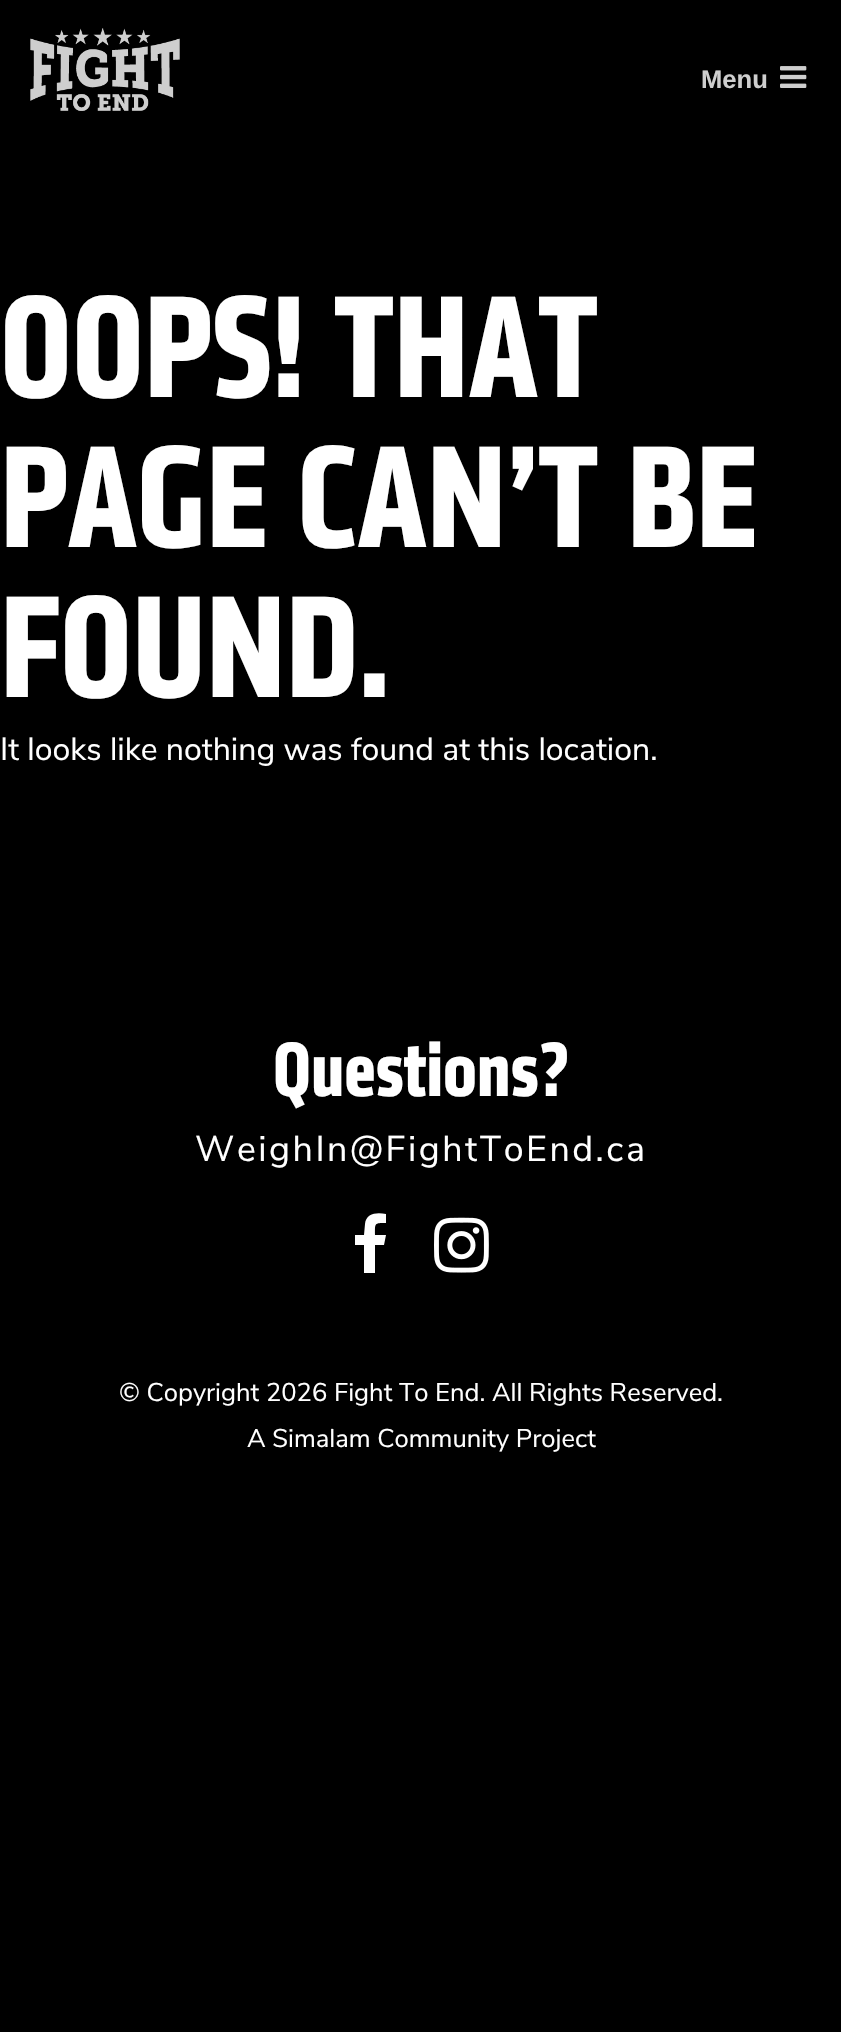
#include "include/core/SkBlurTypes.h"
#include "include/core/SkCanvas.h"
#include "include/core/SkData.h"
#include "include/core/SkFont.h"
#include "include/core/SkFontMgr.h"
#include "include/core/SkImage.h"
#include "include/core/SkMaskFilter.h"
#include "include/core/SkPaint.h"
#include "include/core/SkPathBuilder.h"
#include "include/core/SkTextBlob.h"
#include "include/effects/SkDashPathEffect.h"
#include "include/effects/SkGradientShader.h"
#include "include/utils/SkParsePath.h"

extern sk_sp<SkFontMgr> fontMgr;

void draw(SkCanvas* canvas) {
  SkPaint p;
  p.setAntiAlias(true);
  auto spacedText = [&](const char* s, float x, float y, const SkFont& font, const SkPaint& ink, float letter, float word) {
    std::vector<SkGlyphID> glyphs(font.countText(s, strlen(s), SkTextEncoding::kUTF8));
    std::vector<float> xs(glyphs.size());
    font.textToGlyphs(s, strlen(s), SkTextEncoding::kUTF8, glyphs);
    font.getXPos(glyphs, xs, x);
    float extra = 0;
    for (size_t i = 0; i < glyphs.size(); i++) {
      xs[i] += extra;
      extra += letter + word * (glyphs[i] == font.unicharToGlyph(' '));
    }
    canvas->drawTextBlob(SkTextBlob::MakeFromPosHGlyphs(glyphs, xs, y, font), 0, 0, ink);
  };
  canvas->clear(SK_ColorBLACK);
  canvas->drawImageRect(SkImages::DeferredFromEncodedData(SkData::MakeFromFileName("images/1.png")), SkRect::MakeLTRB(30, 28, 180, 111), SkSamplingOptions());
  canvas->drawImageRect(SkImages::DeferredFromEncodedData(SkData::MakeFromFileName("images/2.png")), SkRect::MakeLTRB(780, 66, 807, 88), SkSamplingOptions());
  p.setColor(SK_ColorWHITE);
  canvas->drawPath(SkPathBuilder().moveTo(386, 1214).lineTo(386, 1223).cubicTo(374, 1223, 375, 1223, 375, 1235).lineTo(386, 1235).lineTo(384, 1245).lineTo(375, 1245).lineTo(375, 1273).lineTo(364, 1273).lineTo(364, 1245).lineTo(355, 1245).lineTo(355, 1235).lineTo(364, 1235).lineTo(365, 1224).cubicTo(366, 1213, 377, 1212, 386, 1214).close().detach(), p);
  canvas->drawImageRect(SkImages::DeferredFromEncodedData(SkData::MakeFromFileName("images/3.png")), SkRect::MakeLTRB(434, 1217, 489, 1273), SkSamplingOptions());
  SkFont font1(fontMgr->matchFamilyStyle("Liberation Sans", SkFontStyle::Bold()), 25.6f);
  font1.setSubpixel(true);
  p.setColor(SkColorSetRGB(206, 206, 206));
  canvas->drawString("Menu", 701, 88, font1, p);
  SkFont font2(fontMgr->matchFamilyStyle("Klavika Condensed", SkFontStyle::Bold()), 150.5f);
  font2.setSubpixel(true);
  p.setColor(SK_ColorWHITE);
  canvas->drawString("OOPS! THAT", 0, 397, font2, p);
  canvas->drawString("PAGE CAN’T BE", 0, 547, font2, p);
  canvas->drawString("FOUND.", 0, 697, font2, p);
  SkFont font3(fontMgr->matchFamilyStyle("Nunito Sans", SkFontStyle::Normal()), 32);
  font3.setSubpixel(true);
  canvas->drawString("It looks like nothing was found at this location.", 0, 760, font3, p);
  SkFont font4(fontMgr->matchFamilyStyle("Klavika Condensed", SkFontStyle::Bold()), 79.5f);
  font4.setSubpixel(true);
  canvas->drawString("Questions?", 273, 1096, font4, p);
  SkFont font5(fontMgr->matchFamilyStyle("Nunito Sans", SkFontStyle::Normal()), 35.8f);
  font5.setSubpixel(true);
  spacedText("WeighIn@FightToEnd.ca", 195, 1161, font5, p, 2.5f, 0);
  SkFont font6(fontMgr->matchFamilyStyle("Nunito Sans", SkFontStyle::Normal()), 25.6f);
  font6.setSubpixel(true);
  canvas->drawString("© Copyright 2026 Fight To End. All Rights Reserved.", 119, 1401, font6, p);
  canvas->drawString("A Simalam Community Project", 247, 1447, font6, p);
}
